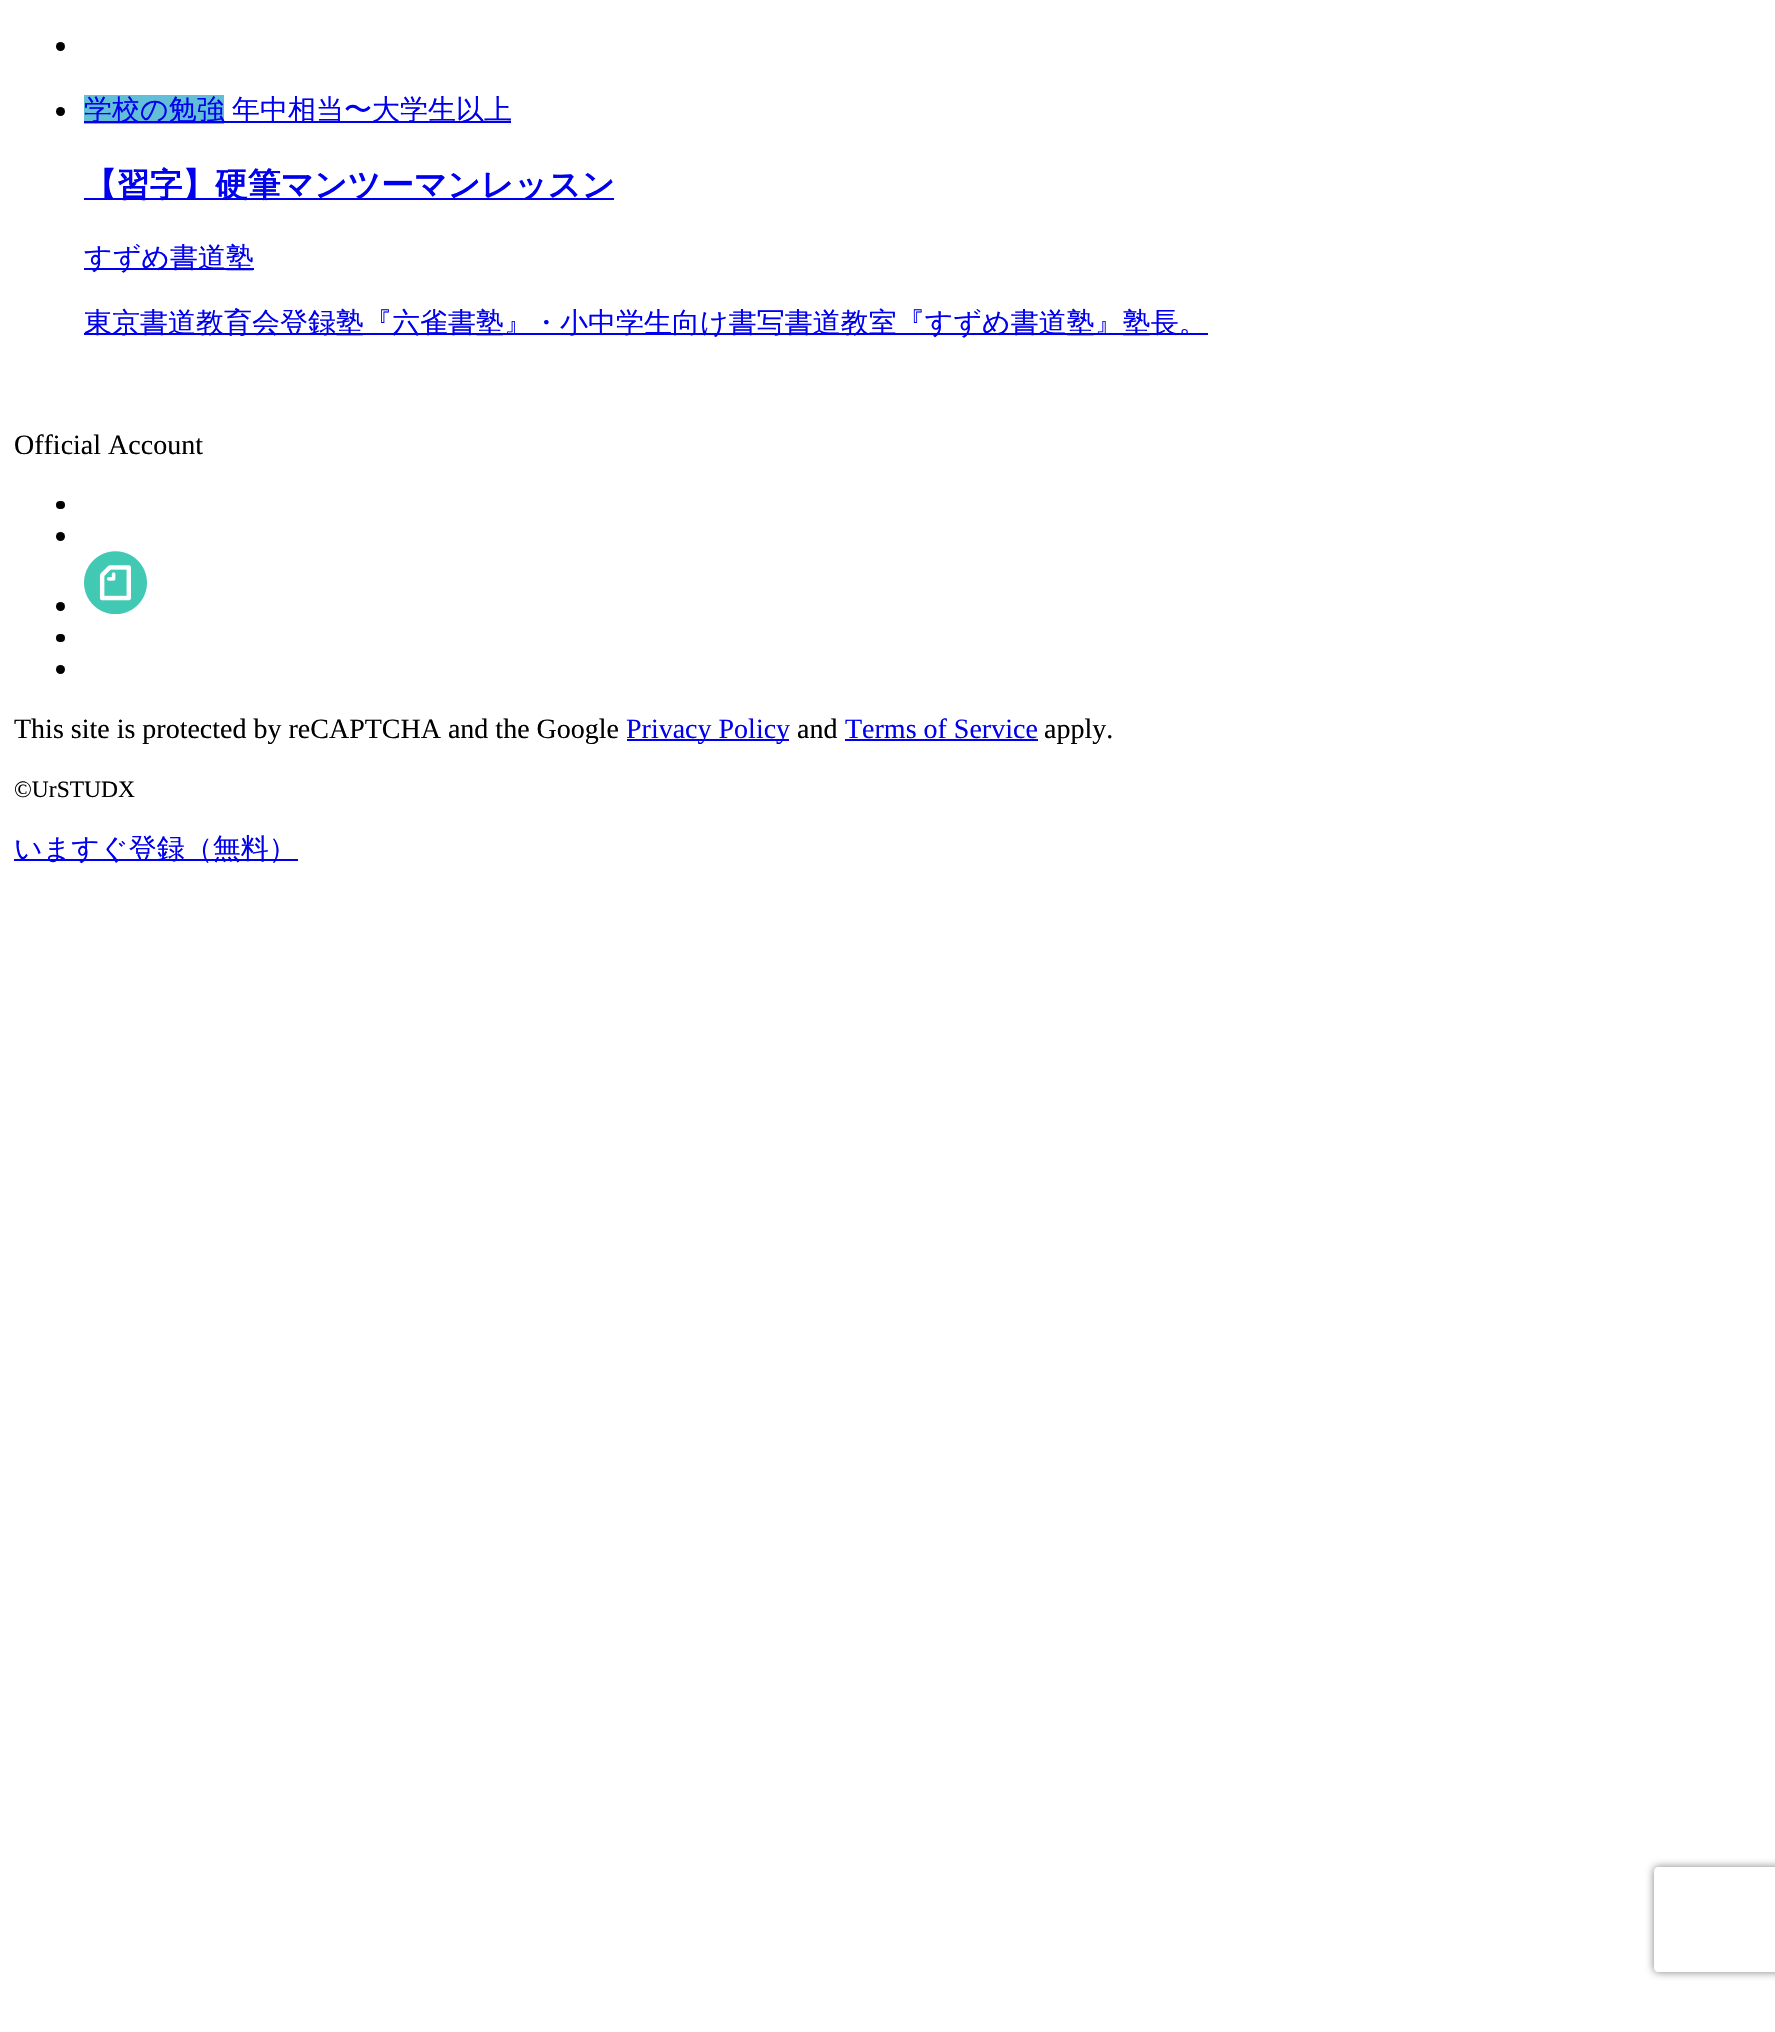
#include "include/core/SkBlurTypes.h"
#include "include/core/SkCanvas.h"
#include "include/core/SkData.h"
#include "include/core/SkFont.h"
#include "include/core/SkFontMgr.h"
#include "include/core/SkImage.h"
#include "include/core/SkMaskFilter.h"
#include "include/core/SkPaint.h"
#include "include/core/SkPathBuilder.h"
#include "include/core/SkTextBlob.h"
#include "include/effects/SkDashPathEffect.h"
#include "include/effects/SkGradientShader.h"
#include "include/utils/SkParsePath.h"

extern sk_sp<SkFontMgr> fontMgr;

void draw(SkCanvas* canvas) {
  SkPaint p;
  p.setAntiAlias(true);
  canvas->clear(SK_ColorWHITE);
  p.setColor(SK_ColorBLACK);
  canvas->drawCircle(60.5f, 46.5f, 4.5f, p);
  canvas->drawCircle(60.5f, 111.5f, 4.5f, p);
  p.setColor(SkColorSetRGB(99, 190, 215));
  canvas->drawRect(SkRect::MakeLTRB(84, 95, 224, 124), p);
  p.setColor(SkColorSetRGB(0, 0, 238));
  canvas->drawRect(SkRect::MakeLTRB(84, 121, 224, 123), p);
  canvas->drawRect(SkRect::MakeLTRB(224, 121, 511, 123), p);
  canvas->drawRect(SkRect::MakeLTRB(84, 198, 614, 200), p);
  canvas->drawRect(SkRect::MakeLTRB(84, 268, 254, 270), p);
  canvas->drawRect(SkRect::MakeLTRB(84, 333, 1208, 335), p);
  p.setColor(SK_ColorBLACK);
  canvas->drawRoundRect(SkRect::MakeLTRB(56, 501, 65, 509), 4, 4, p);
  canvas->drawCircle(60.5f, 536.5f, 4.5f, p);
  canvas->drawCircle(60.5f, 606.5f, 4.5f, p);
  canvas->drawImageRect(SkImages::DeferredFromEncodedData(SkData::MakeFromFileName("images/1.png")), SkRect::MakeLTRB(84, 551, 147, 614), SkSamplingOptions());
  canvas->drawRoundRect(SkRect::MakeLTRB(56, 634, 65, 642), 4, 4, p);
  canvas->drawCircle(60.5f, 669.5f, 4.5f, p);
  p.setColor(SkColorSetRGB(0, 0, 238));
  canvas->drawRect(SkRect::MakeLTRB(627, 739, 789, 741), p);
  canvas->drawRect(SkRect::MakeLTRB(845, 739, 1038, 741), p);
  canvas->drawRect(SkRect::MakeLTRB(14, 859, 298, 861), p);
  canvas->save();
  canvas->clipPath(SkPathBuilder(SkPathFillType::kEvenOdd).moveTo(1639, 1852).lineTo(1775, 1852).lineTo(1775, 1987).lineTo(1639, 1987).close().moveTo(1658, 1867).lineTo(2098, 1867).cubicTo(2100, 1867, 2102, 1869, 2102, 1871).lineTo(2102, 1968).cubicTo(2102, 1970, 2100, 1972, 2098, 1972).lineTo(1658, 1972).cubicTo(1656, 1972, 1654, 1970, 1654, 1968).lineTo(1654, 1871).cubicTo(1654, 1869, 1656, 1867, 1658, 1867).close().detach(), true);
  p.setColor(SkColorSetRGB(128, 128, 128));
  p.setMaskFilter(SkMaskFilter::MakeBlur(kNormal_SkBlurStyle, 4.5f));
  canvas->drawRoundRect(SkRect::MakeLTRB(1654, 1867, 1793, 1972), 4, 4, p);
  p.setMaskFilter(nullptr);
  canvas->restore();
  SkFont font1(fontMgr->matchFamilyStyle("WenQuanYi Zen Hei", SkFontStyle(500, SkFontStyle::kNormal_Width, SkFontStyle::kUpright_Slant)), 28);
  font1.setSubpixel(true);
  p.setColor(SkColorSetRGB(0, 0, 238));
  canvas->drawString("学校の勉強", 84, 119, font1, p);
  canvas->drawString("年中相当〜大学生以上", 232, 119, font1, p);
  SkFont font2(fontMgr->matchFamilyStyle("WenQuanYi Zen Hei", SkFontStyle::Bold()), 32.75f);
  font2.setSubpixel(true);
  canvas->drawString("【習字】硬筆マンツーマンレッスン", 84, 196, font2, p);
  canvas->drawString("すずめ書道塾", 84, 267, font1, p);
  canvas->drawString("東京書道教育会登録塾『六雀書塾』・小中学生向け書写書道教室『すずめ書道塾』塾長。", 84, 332, font1, p);
  SkFont font3(fontMgr->matchFamilyStyle("Liberation Serif", SkFontStyle::Normal()), 28);
  font3.setSubpixel(true);
  p.setColor(SK_ColorBLACK);
  canvas->drawString("Official Account", 14, 454, font3, p);
  canvas->drawString("This site is protected by reCAPTCHA and the Google", 14, 738, font3, p);
  p.setColor(SkColorSetRGB(0, 0, 238));
  canvas->drawString("Privacy Policy", 626, 738, font3, p);
  p.setColor(SK_ColorBLACK);
  canvas->drawString("and", 797, 738, font3, p);
  p.setColor(SkColorSetRGB(0, 0, 238));
  canvas->drawString("Terms of Service", 845, 738, font3, p);
  p.setColor(SK_ColorBLACK);
  canvas->drawString("apply.", 1044, 738, font3, p);
  SkFont font4(fontMgr->matchFamilyStyle("Liberation Serif", SkFontStyle::Normal()), 23.5f);
  font4.setSubpixel(true);
  canvas->drawString("©UrSTUDX", 14, 797, font4, p);
  p.setColor(SkColorSetRGB(0, 0, 238));
  canvas->drawString("いますぐ登録（無料）", 14, 858, font1, p);
}
